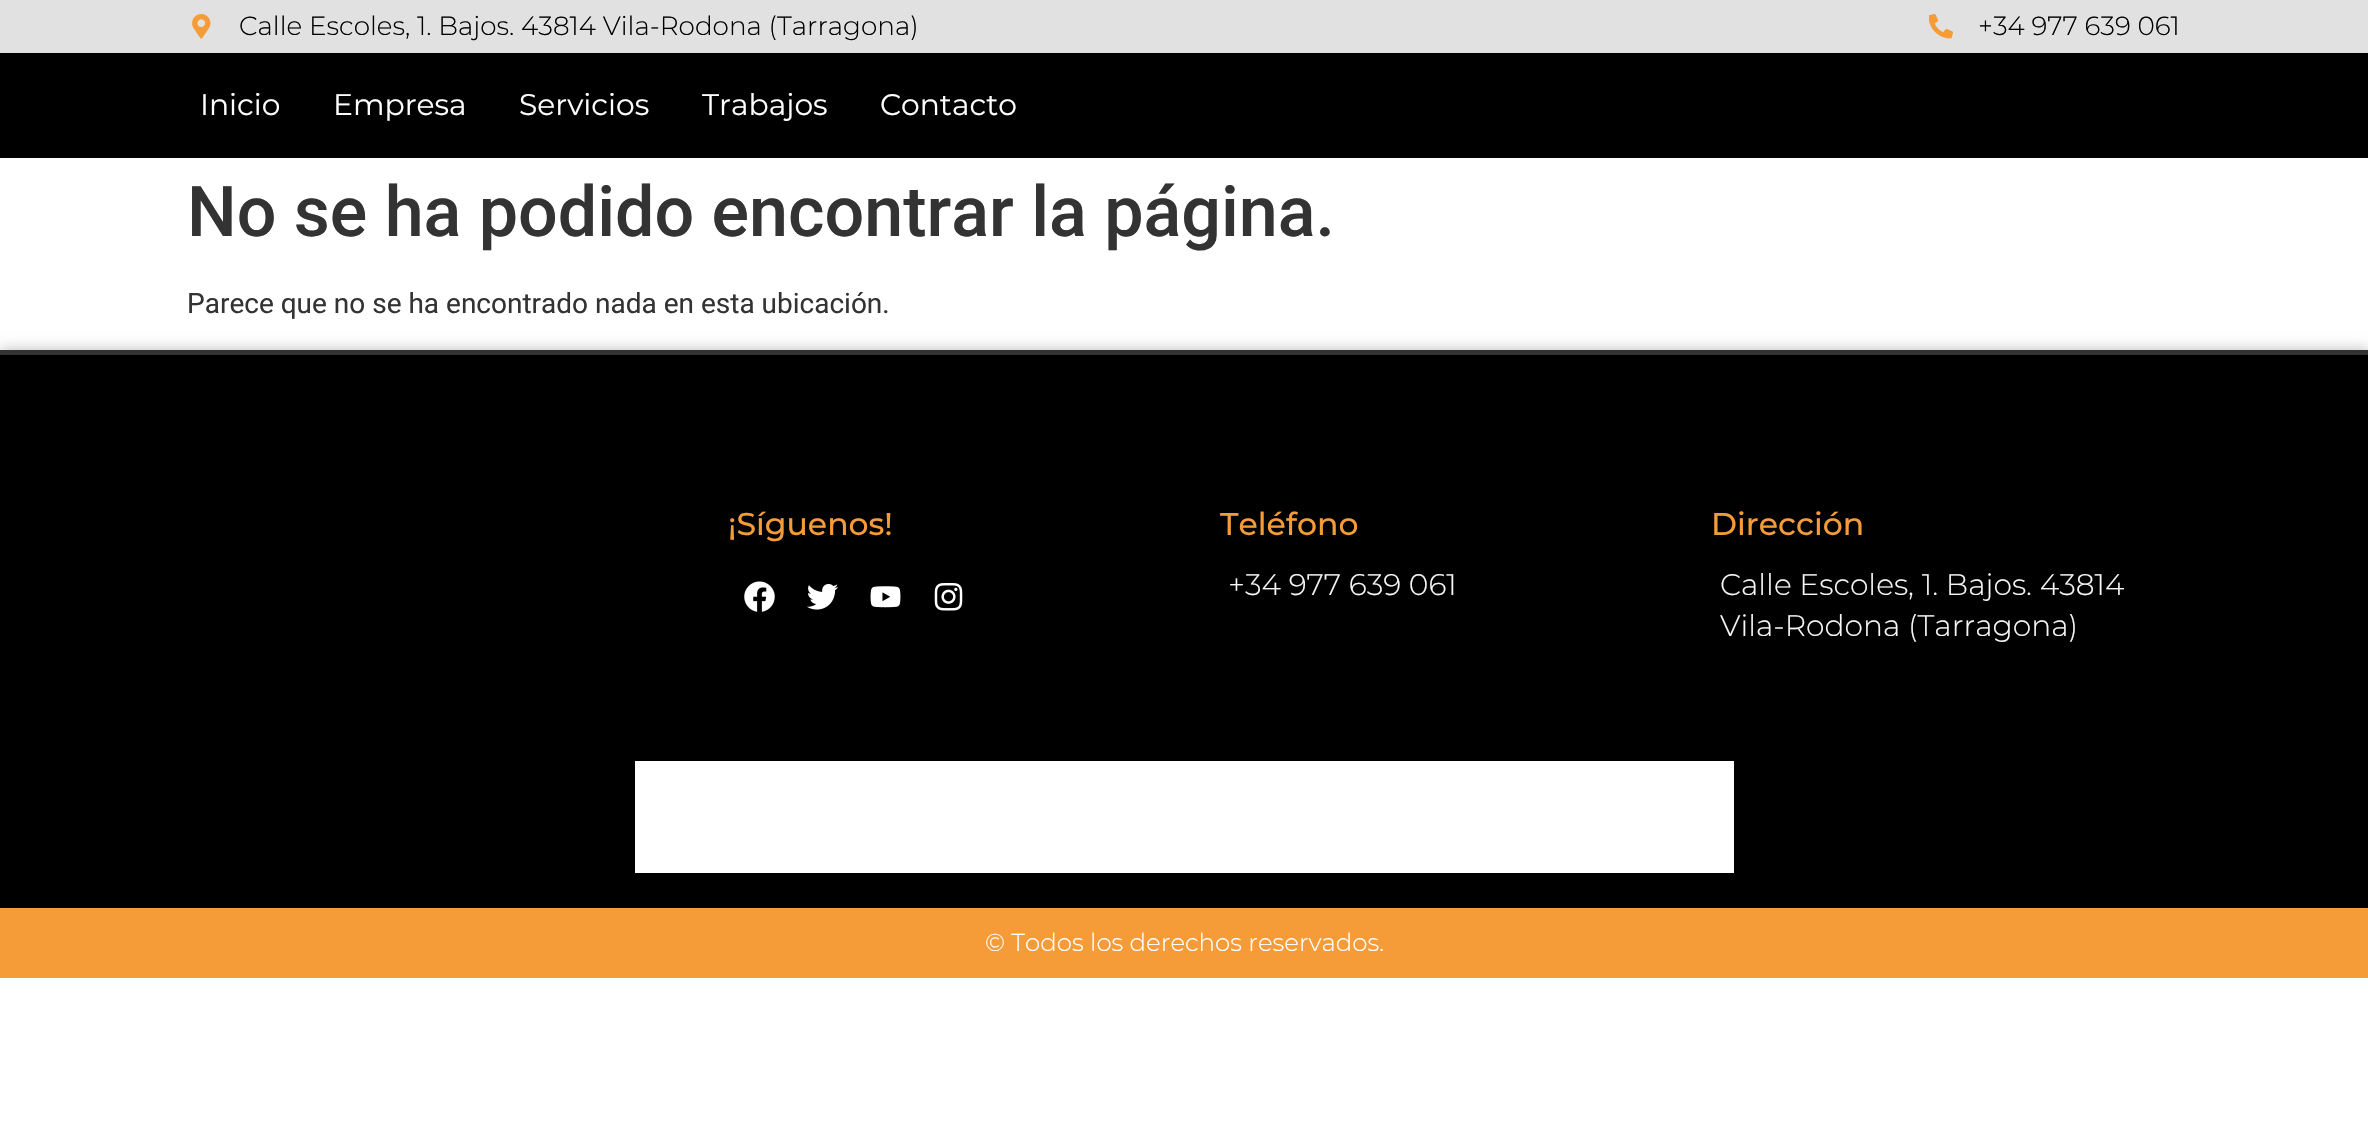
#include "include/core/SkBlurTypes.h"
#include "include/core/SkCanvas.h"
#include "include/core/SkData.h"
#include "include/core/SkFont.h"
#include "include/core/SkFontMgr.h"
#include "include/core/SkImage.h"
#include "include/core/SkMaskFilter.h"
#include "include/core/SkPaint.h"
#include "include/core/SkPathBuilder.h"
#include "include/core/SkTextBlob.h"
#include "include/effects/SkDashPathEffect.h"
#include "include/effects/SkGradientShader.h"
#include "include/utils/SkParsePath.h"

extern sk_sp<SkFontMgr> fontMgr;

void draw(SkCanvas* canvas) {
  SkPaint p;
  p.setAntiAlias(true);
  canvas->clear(SK_ColorWHITE);
  p.setColor(SkColorSetRGB(225, 225, 225));
  canvas->drawRect(SkRect::MakeLTRB(0, 0, 2368, 53), p);
  canvas->drawImageRect(SkImages::DeferredFromEncodedData(SkData::MakeFromFileName("images/1.png")), SkRect::MakeLTRB(192, 14, 211, 39), SkSamplingOptions());
  canvas->drawImageRect(SkImages::DeferredFromEncodedData(SkData::MakeFromFileName("images/2.png")), SkRect::MakeLTRB(1929, 14, 1953, 39), SkSamplingOptions());
  p.setColor(SK_ColorBLACK);
  canvas->drawRect(SkRect::MakeLTRB(0, 53, 2368, 158), p);
  p.setColor(SkColorSetARGB(54, 0, 0, 0));
  p.setMaskFilter(SkMaskFilter::MakeBlur(kNormal_SkBlurStyle, 6));
  canvas->drawRect(SkRect::MakeLTRB(0, 348, 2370, 760), p);
  p.setMaskFilter(nullptr);
  p.setColor(SK_ColorBLACK);
  canvas->drawRect(SkRect::MakeLTRB(0, 355, 2368, 908), p);
  p.setColor(SkColorSetRGB(51, 51, 51));
  canvas->drawRect(SkRect::MakeLTRB(0, 350, 2368, 355), p);
  canvas->drawImageRect(SkImages::DeferredFromEncodedData(SkData::MakeFromFileName("images/3.png")), SkRect::MakeLTRB(744, 581, 775, 612), SkSamplingOptions());
  canvas->drawImageRect(SkImages::DeferredFromEncodedData(SkData::MakeFromFileName("images/4.png")), SkRect::MakeLTRB(807, 584, 838, 610), SkSamplingOptions());
  canvas->drawImageRect(SkImages::DeferredFromEncodedData(SkData::MakeFromFileName("images/5.png")), SkRect::MakeLTRB(870, 586, 901, 608), SkSamplingOptions());
  canvas->drawImageRect(SkImages::DeferredFromEncodedData(SkData::MakeFromFileName("images/6.png")), SkRect::MakeLTRB(934, 582, 963, 611), SkSamplingOptions());
  p.setColor(SK_ColorWHITE);
  canvas->drawRect(SkRect::MakeLTRB(635, 761, 1734, 873), p);
  p.setColor(SkColorSetRGB(245, 156, 56));
  canvas->drawRect(SkRect::MakeLTRB(0, 908, 2368, 978), p);
  SkFont font1(fontMgr->matchFamilyStyle("Montserrat", SkFontStyle(300, SkFontStyle::kNormal_Width, SkFontStyle::kUpright_Slant)), 26.25f);
  font1.setSubpixel(true);
  p.setColor(SK_ColorBLACK);
  canvas->drawString("Calle Escoles, 1. Bajos. 43814 Vila-Rodona (Tarragona)", 239, 35, font1, p);
  canvas->drawString("+34 977 639 061", 1978, 35, font1, p);
  SkFont font2(fontMgr->matchFamilyStyle("Montserrat", SkFontStyle::Normal()), 29.75f);
  font2.setSubpixel(true);
  p.setColor(SK_ColorWHITE);
  canvas->drawString("Inicio", 200, 115, font2, p);
  canvas->drawString("Empresa", 333, 115, font2, p);
  canvas->drawString("Servicios", 519, 115, font2, p);
  canvas->drawString("Trabajos", 702, 115, font2, p);
  canvas->drawString("Contacto", 880, 115, font2, p);
  SkFont font3(fontMgr->matchFamilyStyle("Roboto", SkFontStyle(500, SkFontStyle::kNormal_Width, SkFontStyle::kUpright_Slant)), 70);
  font3.setSubpixel(true);
  p.setColor(SkColorSetRGB(51, 51, 51));
  canvas->drawString("No se ha podido encontrar la página.", 187, 236, font3, p);
  SkFont font4(fontMgr->matchFamilyStyle("Roboto", SkFontStyle::Normal()), 28);
  font4.setSubpixel(true);
  canvas->drawString("Parece que no se ha encontrado nada en esta ubicación.", 187, 313, font4, p);
  SkFont font5(fontMgr->matchFamilyStyle("Montserrat", SkFontStyle(500, SkFontStyle::kNormal_Width, SkFontStyle::kUpright_Slant)), 31.5f);
  font5.setSubpixel(true);
  p.setColor(SkColorSetRGB(245, 156, 56));
  canvas->drawString("¡Síguenos!", 728, 535, font5, p);
  canvas->drawString("Teléfono", 1220, 535, font5, p);
  SkFont font6(fontMgr->matchFamilyStyle("Montserrat", SkFontStyle(300, SkFontStyle::kNormal_Width, SkFontStyle::kUpright_Slant)), 29.75f);
  font6.setSubpixel(true);
  p.setColor(SkColorSetRGB(247, 247, 247));
  canvas->drawString("+34 977 639 061", 1228, 595, font6, p);
  p.setColor(SkColorSetRGB(245, 156, 56));
  canvas->drawString("Dirección", 1711, 535, font5, p);
  p.setColor(SkColorSetRGB(247, 247, 247));
  canvas->drawString("Calle Escoles, 1. Bajos. 43814", 1720, 595, font6, p);
  canvas->drawString("Vila-Rodona (Tarragona)", 1720, 636, font6, p);
  SkFont font7(fontMgr->matchFamilyStyle("Montserrat", SkFontStyle(300, SkFontStyle::kNormal_Width, SkFontStyle::kUpright_Slant)), 24.5f);
  font7.setSubpixel(true);
  p.setColor(SK_ColorWHITE);
  canvas->drawString("© Todos los derechos reservados.", 985, 951, font7, p);
}
